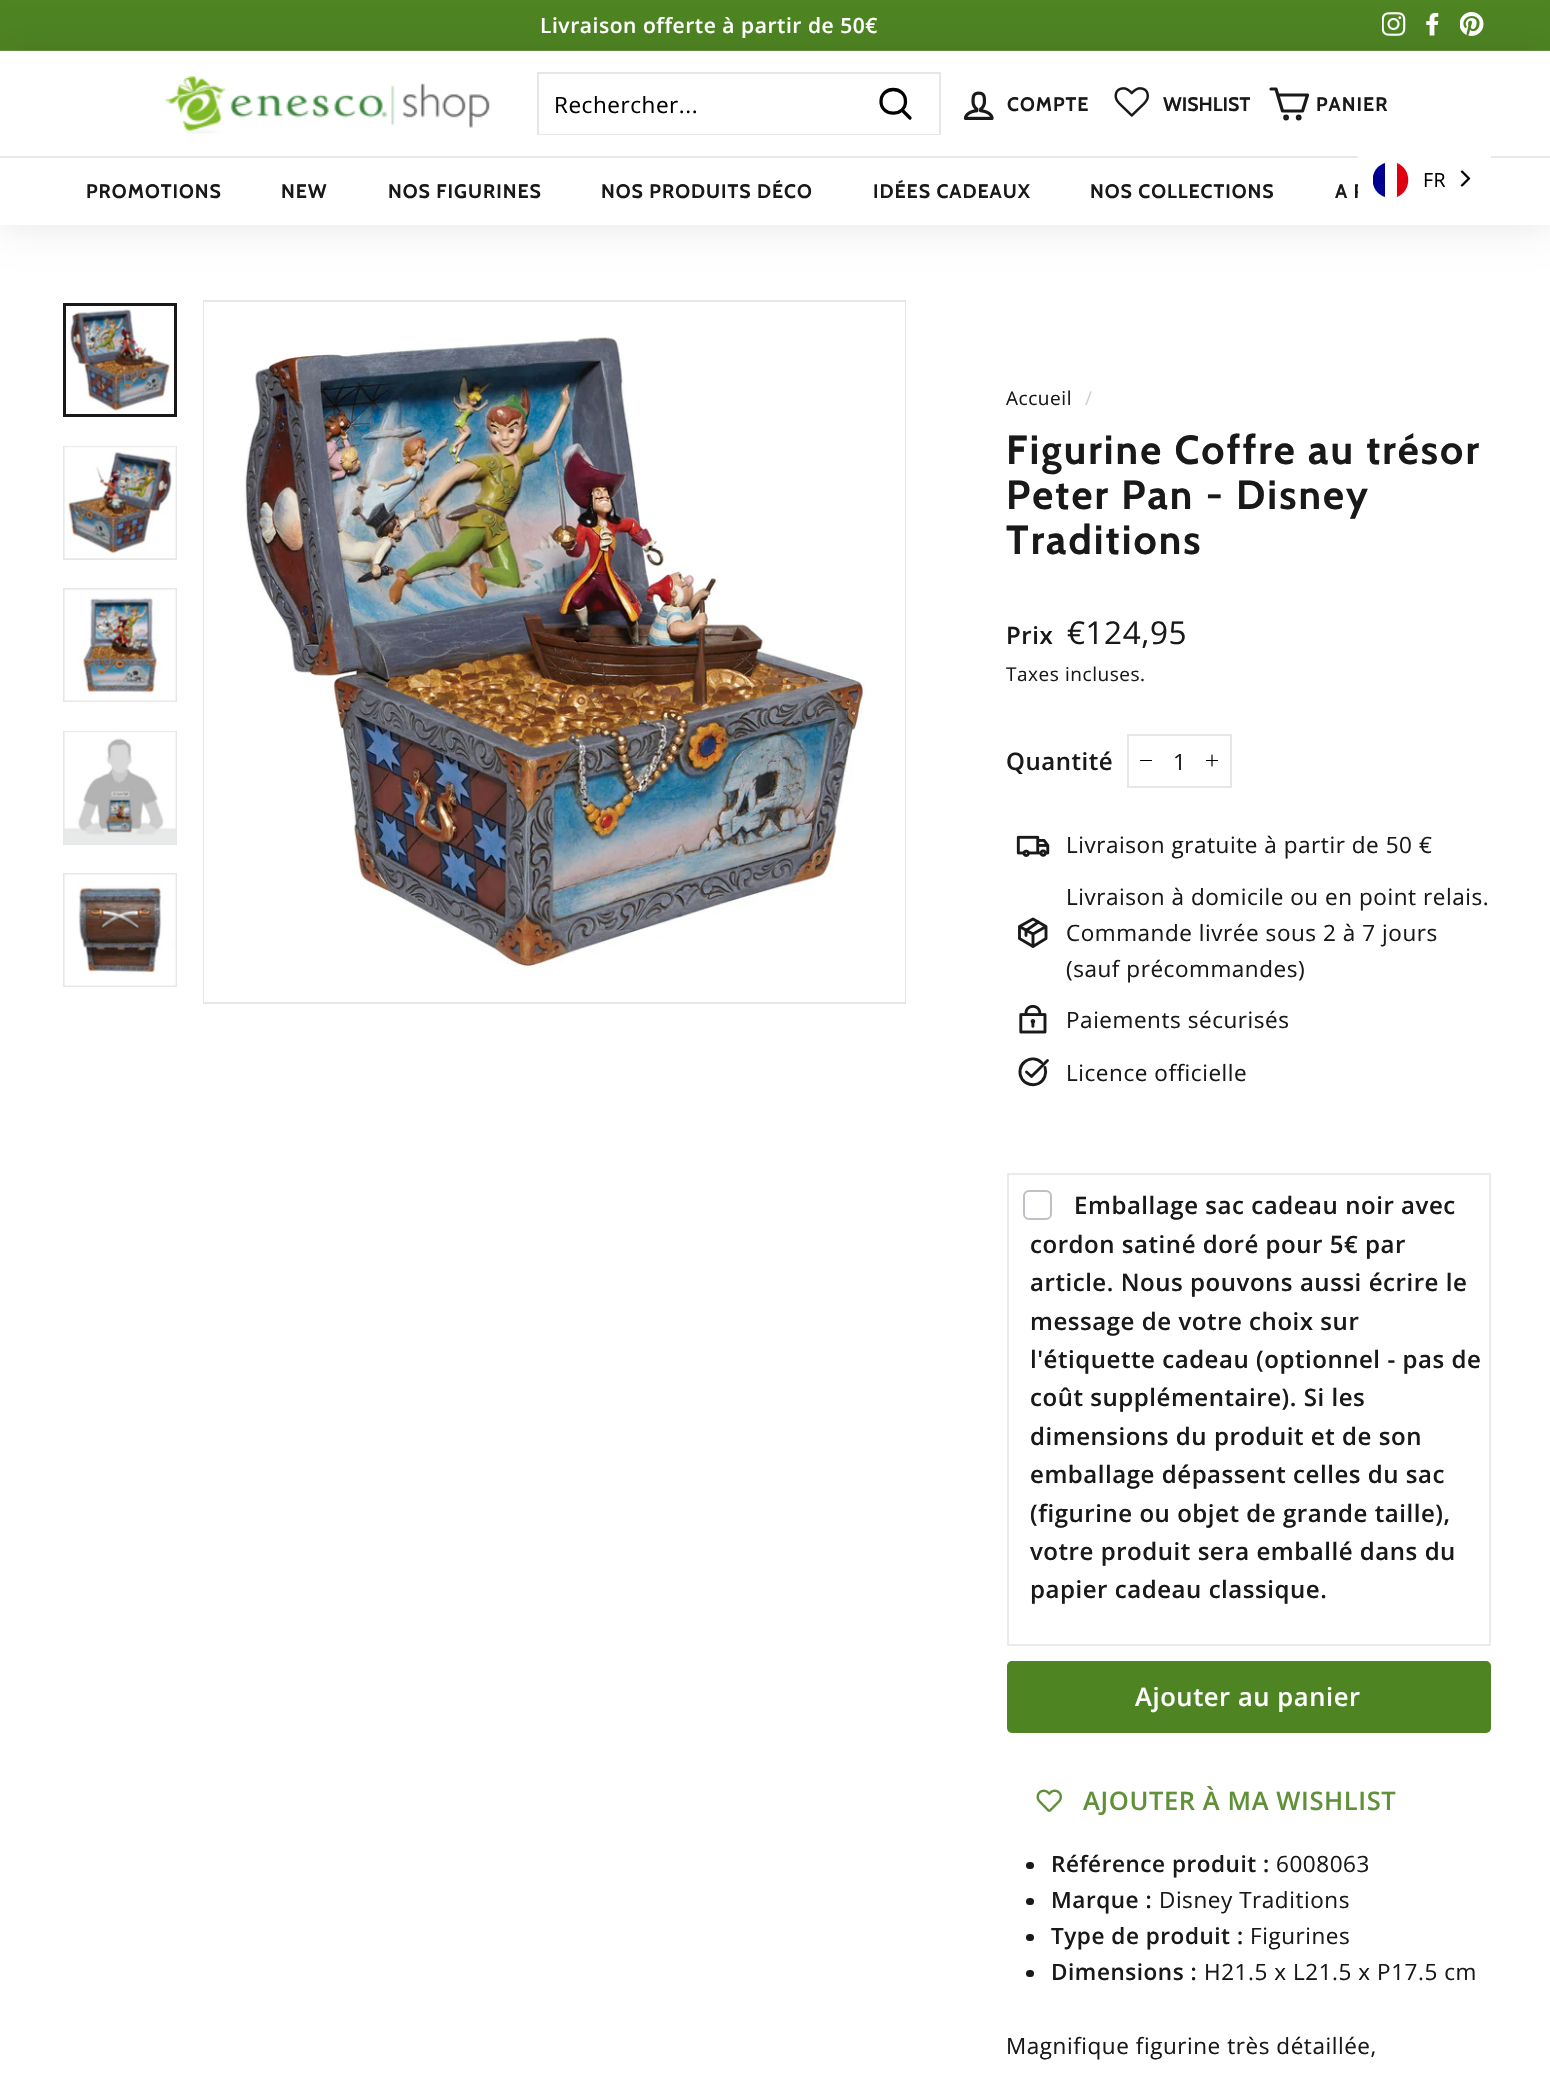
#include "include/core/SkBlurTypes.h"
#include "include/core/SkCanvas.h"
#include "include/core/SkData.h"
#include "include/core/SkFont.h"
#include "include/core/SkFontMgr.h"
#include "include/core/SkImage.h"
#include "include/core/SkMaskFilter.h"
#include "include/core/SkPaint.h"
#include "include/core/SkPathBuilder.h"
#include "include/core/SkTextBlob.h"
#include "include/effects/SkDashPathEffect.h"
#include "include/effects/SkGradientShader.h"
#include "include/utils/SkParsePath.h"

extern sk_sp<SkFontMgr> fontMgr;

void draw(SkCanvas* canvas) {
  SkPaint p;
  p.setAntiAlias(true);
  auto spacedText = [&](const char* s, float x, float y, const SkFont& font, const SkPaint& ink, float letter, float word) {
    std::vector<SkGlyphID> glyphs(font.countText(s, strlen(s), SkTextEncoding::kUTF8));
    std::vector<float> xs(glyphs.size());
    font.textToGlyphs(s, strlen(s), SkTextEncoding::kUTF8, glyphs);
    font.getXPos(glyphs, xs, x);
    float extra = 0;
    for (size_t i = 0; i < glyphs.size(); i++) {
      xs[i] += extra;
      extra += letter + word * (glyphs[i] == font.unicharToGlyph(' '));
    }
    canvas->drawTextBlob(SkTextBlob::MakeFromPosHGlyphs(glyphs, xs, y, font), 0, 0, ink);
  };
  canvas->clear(SK_ColorWHITE);
  p.setColor(SkColorSetRGB(78, 132, 34));
  canvas->drawRect(SkRect::MakeLTRB(0, 0, 1550, 50), p);
  p.setColor(SkColorSetRGB(105, 150, 67));
  canvas->drawRect(SkRect::MakeLTRB(0, 50, 1550, 51), p);
  canvas->drawImageRect(SkImages::DeferredFromEncodedData(SkData::MakeFromFileName("images/1.png")), SkRect::MakeLTRB(1382, 12, 1406, 36), SkSamplingOptions());
  canvas->drawImageRect(SkImages::DeferredFromEncodedData(SkData::MakeFromFileName("images/2.png")), SkRect::MakeLTRB(1426, 12, 1439, 36), SkSamplingOptions());
  canvas->drawImageRect(SkImages::DeferredFromEncodedData(SkData::MakeFromFileName("images/3.png")), SkRect::MakeLTRB(1460, 12, 1484, 36), SkSamplingOptions());
  p.setColor(SkColorSetARGB(26, 0, 0, 0));
  p.setMaskFilter(SkMaskFilter::MakeBlur(kNormal_SkBlurStyle, 19));
  canvas->drawRect(SkRect::MakeLTRB(0, 51, 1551, 156), p);
  p.setMaskFilter(nullptr);
  p.setMaskFilter(SkMaskFilter::MakeBlur(kNormal_SkBlurStyle, 19));
  canvas->drawRect(SkRect::MakeLTRB(0, 156, 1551, 225), p);
  p.setMaskFilter(nullptr);
  p.setColor(SK_ColorWHITE);
  canvas->drawRect(SkRect::MakeLTRB(0, 51, 1550, 156), p);
  canvas->drawImageRect(SkImages::DeferredFromEncodedData(SkData::MakeFromFileName("images/4.png")), SkRect::MakeLTRB(164, 76, 490, 134), SkSamplingOptions());
  p.setStyle(SkPaint::kStroke_Style);
  p.setStrokeWidth(2);
  p.setColor(SkColorSetRGB(230, 231, 232));
  canvas->drawRect(SkRect::MakeLTRB(538, 73, 940, 134), p);
  p.setStyle(SkPaint::kFill_Style);
  p.setColor(SK_ColorWHITE);
  canvas->drawRect(SkRect::MakeLTRB(539, 133, 939, 134), p);
  p.setStyle(SkPaint::kStroke_Style);
  p.setStrokeWidth(3.3f);
  p.setStrokeCap(SkPaint::kRound_Cap);
  p.setStrokeJoin(SkPaint::kRound_Join);
  p.setColor(SK_ColorBLACK);
  canvas->drawPath(SkPathBuilder().moveTo(905.5f, 101.5f).cubicTo(905.5f, 117, 881, 117, 881, 101.5f).cubicTo(881, 85.5f, 905.5f, 85.5f, 905.5f, 101.5f).close().moveTo(910, 118).lineTo(902, 110).detach(), p);
  canvas->drawImageRect(SkImages::DeferredFromEncodedData(SkData::MakeFromFileName("images/5.png")), SkRect::MakeLTRB(963, 91, 994, 120), SkSamplingOptions());
  canvas->drawImageRect(SkImages::DeferredFromEncodedData(SkData::MakeFromFileName("images/6.png")), SkRect::MakeLTRB(1114, 87, 1149, 117), SkSamplingOptions());
  p.setStrokeWidth(3.2f);
  p.setColor(SkColorSetRGB(25, 25, 25));
  canvas->drawPath(SkPathBuilder().moveTo(1278, 95).lineTo(1307.5f, 95).lineTo(1302.5f, 111).lineTo(1282.5f, 111).lineTo(1276, 89).lineTo(1271, 89).detach(), p);
  p.setStrokeCap(SkPaint::kButt_Cap);
  p.setStrokeJoin(SkPaint::kMiter_Join);
  canvas->drawCircle(1286.1f, 117.5f, 1.3f, p);
  canvas->drawCircle(1298.7f, 117.5f, 1.3f, p);
  p.setStyle(SkPaint::kFill_Style);
  p.setColor(SK_ColorWHITE);
  canvas->drawRect(SkRect::MakeLTRB(0, 158, 1550, 225), p);
  p.setColor(SkColorSetRGB(232, 232, 232));
  canvas->drawRect(SkRect::MakeLTRB(0, 156, 1550, 158), p);
  canvas->drawImageRect(SkImages::DeferredFromEncodedData(SkData::MakeFromFileName("images/8.png")), SkRect::MakeLTRB(66, 306, 174, 414), SkSamplingOptions());
  p.setStyle(SkPaint::kStroke_Style);
  p.setStrokeWidth(3);
  p.setColor(SkColorSetRGB(25, 25, 25));
  canvas->drawRect(SkRect::MakeLTRB(64.5f, 304.5f, 175.5f, 415.5f), p);
  p.setStrokeWidth(2);
  p.setColor(SkColorSetRGB(230, 231, 232));
  canvas->drawRect(SkRect::MakeLTRB(64, 447, 176, 559), p);
  canvas->drawImageRect(SkImages::DeferredFromEncodedData(SkData::MakeFromFileName("images/9.png")), SkRect::MakeLTRB(64, 446, 176, 559), SkSamplingOptions());
  canvas->drawRect(SkRect::MakeLTRB(64, 589, 176, 701), p);
  canvas->drawImageRect(SkImages::DeferredFromEncodedData(SkData::MakeFromFileName("images/10.png")), SkRect::MakeLTRB(64, 589, 176, 701), SkSamplingOptions());
  canvas->drawRect(SkRect::MakeLTRB(64, 732, 176, 844), p);
  canvas->drawImageRect(SkImages::DeferredFromEncodedData(SkData::MakeFromFileName("images/11.png")), SkRect::MakeLTRB(64, 731, 176, 843), SkSamplingOptions());
  canvas->drawRect(SkRect::MakeLTRB(64, 874, 176, 986), p);
  canvas->drawImageRect(SkImages::DeferredFromEncodedData(SkData::MakeFromFileName("images/12.png")), SkRect::MakeLTRB(64, 874, 176, 986), SkSamplingOptions());
  canvas->drawRect(SkRect::MakeLTRB(204, 301, 905, 1003), p);
  p.setStyle(SkPaint::kFill_Style);
  p.setColor(SK_ColorWHITE);
  canvas->drawRect(SkRect::MakeLTRB(204, 302, 905, 1002), p);
  canvas->drawImageRect(SkImages::DeferredFromEncodedData(SkData::MakeFromFileName("images/13.png")), SkRect::MakeLTRB(243, 337, 866, 971), SkSamplingOptions());
  p.setStyle(SkPaint::kStroke_Style);
  p.setColor(SkColorSetRGB(230, 231, 232));
  canvas->drawRect(SkRect::MakeLTRB(1128, 735, 1231, 787), p);
  p.setStrokeWidth(1.2f);
  p.setStrokeCap(SkPaint::kRound_Cap);
  p.setStrokeJoin(SkPaint::kRound_Join);
  p.setColor(SK_ColorBLACK);
  canvas->drawPath(SkPathBuilder().moveTo(1151.5f, 760.5f).lineTo(1140.5f, 760.5f).detach(), p);
  canvas->drawPath(SkPathBuilder().moveTo(1212, 755).lineTo(1212, 766).moveTo(1217.5f, 760.5f).lineTo(1206.5f, 760.5f).detach(), p);
  canvas->drawImageRect(SkImages::DeferredFromEncodedData(SkData::MakeFromFileName("images/14.png")), SkRect::MakeLTRB(1016, 835, 1050, 857), SkSamplingOptions());
  p.setStrokeWidth(2.9f);
  p.setColor(SkColorSetRGB(25, 25, 25));
  canvas->drawPath(SkPathBuilder().moveTo(1033, 946.5f).lineTo(1019.5f, 938.5f).lineTo(1019.5f, 926.5f).lineTo(1033, 919).lineTo(1046, 926.5f).lineTo(1046, 938.5f).close().moveTo(1033, 946.5f).lineTo(1033, 934).lineTo(1046, 926.5f).moveTo(1033, 934).lineTo(1019.5f, 926.5f).moveTo(1038.5f, 922).lineTo(1026, 930.5f).lineTo(1026, 935.5f).detach(), p);
  canvas->drawImageRect(SkImages::DeferredFromEncodedData(SkData::MakeFromFileName("images/15.png")), SkRect::MakeLTRB(1019, 1004, 1047, 1034), SkSamplingOptions());
  canvas->drawPath(SkPathBuilder().moveTo(1045, 1067.5f).cubicTo(1047, 1073.5f, 1044.5f, 1080.5f, 1038.5f, 1083.5f).cubicTo(1033, 1086, 1025.5f, 1084.5f, 1022, 1079).cubicTo(1018.5f, 1073.5f, 1019.5f, 1066, 1024.5f, 1062).cubicTo(1029.5f, 1057.5f, 1037, 1058, 1041.5f, 1062.5f).moveTo(1026.5f, 1072).lineTo(1031.5f, 1076.5f).lineTo(1047.5f, 1060.5f).detach(), p);
  p.setStrokeWidth(2);
  p.setStrokeCap(SkPaint::kButt_Cap);
  p.setStrokeJoin(SkPaint::kMiter_Join);
  p.setColor(SkColorSetRGB(235, 235, 235));
  canvas->drawRect(SkRect::MakeLTRB(1008, 1174, 1490, 1645), p);
  p.setColor(SkColorSetRGB(189, 193, 198));
  canvas->drawRoundRect(SkRect::MakeLTRB(1024, 1191, 1051, 1219), 5, 5, p);
  p.setStyle(SkPaint::kFill_Style);
  p.setColor(SkColorSetRGB(78, 132, 34));
  canvas->drawRoundRect(SkRect::MakeLTRB(1007, 1661, 1491, 1733), 5, 5, p);
  canvas->drawImageRect(SkImages::DeferredFromEncodedData(SkData::MakeFromFileName("images/16.png")), SkRect::MakeLTRB(1036, 1789, 1062, 1812), SkSamplingOptions());
  p.setColor(SkColorSetRGB(25, 25, 25));
  canvas->drawRoundRect(SkRect::MakeLTRB(1026, 1862, 1034, 1869), 3.5f, 3.5f, p);
  canvas->drawRoundRect(SkRect::MakeLTRB(1026, 1898, 1034, 1905), 3.5f, 3.5f, p);
  canvas->drawRoundRect(SkRect::MakeLTRB(1026, 1934, 1034, 1941), 3.5f, 3.5f, p);
  canvas->drawRoundRect(SkRect::MakeLTRB(1026, 1970, 1034, 1977), 3.5f, 3.5f, p);
  SkFont font1(fontMgr->matchFamilyStyle("Open Sans", SkFontStyle(600, SkFontStyle::kNormal_Width, SkFontStyle::kUpright_Slant)), 21);
  font1.setSubpixel(true);
  p.setColor(SK_ColorWHITE);
  spacedText("Livraison offerte à partir de 50€", 540, 33, font1, p, 0.55f, 0);
  SkFont font2(fontMgr->matchFamilyStyle("Open Sans", SkFontStyle::Normal()), 22.5f);
  font2.setSubpixel(true);
  p.setColor(SK_ColorBLACK);
  spacedText("Rechercher...", 554, 113, font2, p, 0.55f, 0);
  SkFont font3(fontMgr->matchFamilyStyle("Cabin", SkFontStyle::Bold()), 19.5f);
  font3.setSubpixel(true);
  p.setColor(SkColorSetRGB(25, 25, 25));
  spacedText("COMPTE", 1007, 111, font3, p, 1, 0);
  canvas->drawString("WISHLIST", 1163, 111, font3, p);
  spacedText("PANIER", 1316, 111, font3, p, 1, 0);
  spacedText("PROMOTIONS", 86, 198, font3, p, 1, 0);
  spacedText("NEW", 281, 198, font3, p, 1, 0);
  spacedText("NOS FIGURINES", 388, 198, font3, p, 1, 0);
  spacedText("NOS PRODUITS DÉCO", 601, 198, font3, p, 1, 0);
  spacedText("IDÉES CADEAUX", 873, 198, font3, p, 1, 0);
  spacedText("NOS COLLECTIONS", 1090, 198, font3, p, 1, 0);
  spacedText("A P", 1335, 198, font3, p, 1, 0);
  p.setColor(SK_ColorWHITE);
  canvas->drawRect(SkRect::MakeLTRB(1358, 156, 1491, 194), p);
  canvas->drawImageRect(SkImages::DeferredFromEncodedData(SkData::MakeFromFileName("images/7.png")), SkRect::MakeLTRB(1460, 170, 1471, 187), SkSamplingOptions());
  SkFont font4(fontMgr->matchFamilyStyle("Open Sans", SkFontStyle::Normal()), 19.5f);
  font4.setSubpixel(true);
  p.setColor(SK_ColorBLACK);
  spacedText("FR", 1423, 187, font4, p, 0.55f, 0);
  p.setColor(SkColorSetRGB(225, 0, 15));
  canvas->drawPath(SkPathBuilder().moveTo(1397, 163).cubicTo(1412, 169, 1412, 191, 1397, 197).close().detach(), p);
  p.setColor(SkColorSetRGB(0, 0, 145));
  canvas->drawPath(SkPathBuilder().moveTo(1385, 163).lineTo(1385, 197).cubicTo(1379, 195, 1374.5f, 190.5f, 1373, 184).lineTo(1373, 176).cubicTo(1374.5f, 169.5f, 1379, 165, 1385, 163).close().detach(), p);
  SkFont font5(fontMgr->matchFamilyStyle("Open Sans", SkFontStyle::Normal()), 19);
  font5.setSubpixel(true);
  p.setColor(SkColorSetRGB(25, 25, 25));
  spacedText("Accueil", 1006, 405, font5, p, 0.55f, 0);
  p.setColor(SkColorSetRGB(209, 209, 209));
  spacedText("/", 1085, 405, font5, p, 0.55f, 0);
  SkFont font6(fontMgr->matchFamilyStyle("Cabin", SkFontStyle::Bold()), 40.75f);
  font6.setSubpixel(true);
  p.setColor(SkColorSetRGB(25, 25, 25));
  spacedText("Figurine Coffre au trésor", 1006, 464, font6, p, 2.05f, 0);
  spacedText("Peter Pan - Disney", 1006, 509, font6, p, 2.05f, 0);
  spacedText("Traditions", 1006, 554, font6, p, 2.05f, 0);
  SkFont font7(fontMgr->matchFamilyStyle("Open Sans", SkFontStyle(600, SkFontStyle::kNormal_Width, SkFontStyle::kUpright_Slant)), 24);
  font7.setSubpixel(true);
  spacedText("Prix", 1006, 644, font7, p, 0.55f, 0);
  SkFont font8(fontMgr->matchFamilyStyle("Open Sans", SkFontStyle::Normal()), 31.5f);
  font8.setSubpixel(true);
  spacedText("€124,95", 1067, 644, font8, p, 0.55f, 0);
  spacedText("Taxes incluses.", 1006, 681, font5, p, 0.55f, 0);
  spacedText("Quantité", 1006, 770, font7, p, 0.55f, 0);
  spacedText("1", 1173, 770, font2, p, 0.55f, 0);
  spacedText("Livraison gratuite à partir de 50 €", 1066, 853, font2, p, 0.55f, 0);
  spacedText("Livraison à domicile ou en point relais.", 1066, 905, font2, p, 0.55f, 0);
  spacedText("Commande livrée sous 2 à 7 jours", 1066, 941, font2, p, 0.55f, 0);
  spacedText("(sauf précommandes)", 1066, 977, font2, p, 0.55f, 0);
  spacedText("Paiements sécurisés", 1066, 1028, font2, p, 0.55f, 0);
  spacedText("Licence officielle", 1066, 1081, font2, p, 0.55f, 0);
  spacedText("Emballage sac cadeau noir avec", 1074, 1214, font7, p, 0.55f, 0);
  spacedText("cordon satiné doré pour 5€ par", 1030, 1253, font7, p, 0.55f, 0);
  spacedText("article. Nous pouvons aussi écrire le", 1030, 1291, font7, p, 0.55f, 0);
  spacedText("message de votre choix sur", 1030, 1330, font7, p, 0.55f, 0);
  spacedText("l'étiquette cadeau (optionnel - pas de", 1030, 1368, font7, p, 0.55f, 0);
  spacedText("coût supplémentaire). Si les", 1030, 1406, font7, p, 0.55f, 0);
  spacedText("dimensions du produit et de son", 1030, 1445, font7, p, 0.55f, 0);
  spacedText("emballage dépassent celles du sac", 1030, 1483, font7, p, 0.55f, 0);
  spacedText("(figurine ou objet de grande taille),", 1030, 1522, font7, p, 0.55f, 0);
  spacedText("votre produit sera emballé dans du", 1030, 1560, font7, p, 0.55f, 0);
  spacedText("papier cadeau classique.", 1030, 1598, font7, p, 0.55f, 0);
  SkFont font9(fontMgr->matchFamilyStyle("Open Sans", SkFontStyle(600, SkFontStyle::kNormal_Width, SkFontStyle::kUpright_Slant)), 25.5f);
  font9.setSubpixel(true);
  p.setColor(SK_ColorWHITE);
  spacedText("Ajouter au panier", 1135, 1706, font9, p, 0.6f, 0);
  p.setColor(SkColorSetRGB(96, 144, 56));
  spacedText("AJOUTER À MA WISHLIST", 1083, 1810, font9, p, 0.6f, 0);
  SkFont font10(fontMgr->matchFamilyStyle("Open Sans", SkFontStyle(600, SkFontStyle::kNormal_Width, SkFontStyle::kUpright_Slant)), 22.5f);
  font10.setSubpixel(true);
  p.setColor(SkColorSetRGB(25, 25, 25));
  spacedText("Référence produit :", 1051, 1872, font10, p, 0.55f, 0);
  spacedText("6008063", 1276, 1872, font2, p, 0.55f, 0);
  spacedText("Marque :", 1051, 1908, font10, p, 0.55f, 0);
  spacedText("Disney Traditions", 1159, 1908, font2, p, 0.55f, 0);
  spacedText("Type de produit :", 1051, 1944, font10, p, 0.55f, 0);
  spacedText("Figurines", 1250, 1944, font2, p, 0.55f, 0);
  spacedText("Dimensions :", 1051, 1980, font10, p, 0.55f, 0);
  spacedText("H21.5 x L21.5 x P17.5 cm", 1204, 1980, font2, p, 0.55f, 0);
  spacedText("Magnifique figurine très détaillée,", 1006, 2054, font2, p, 0.55f, 0);
}
